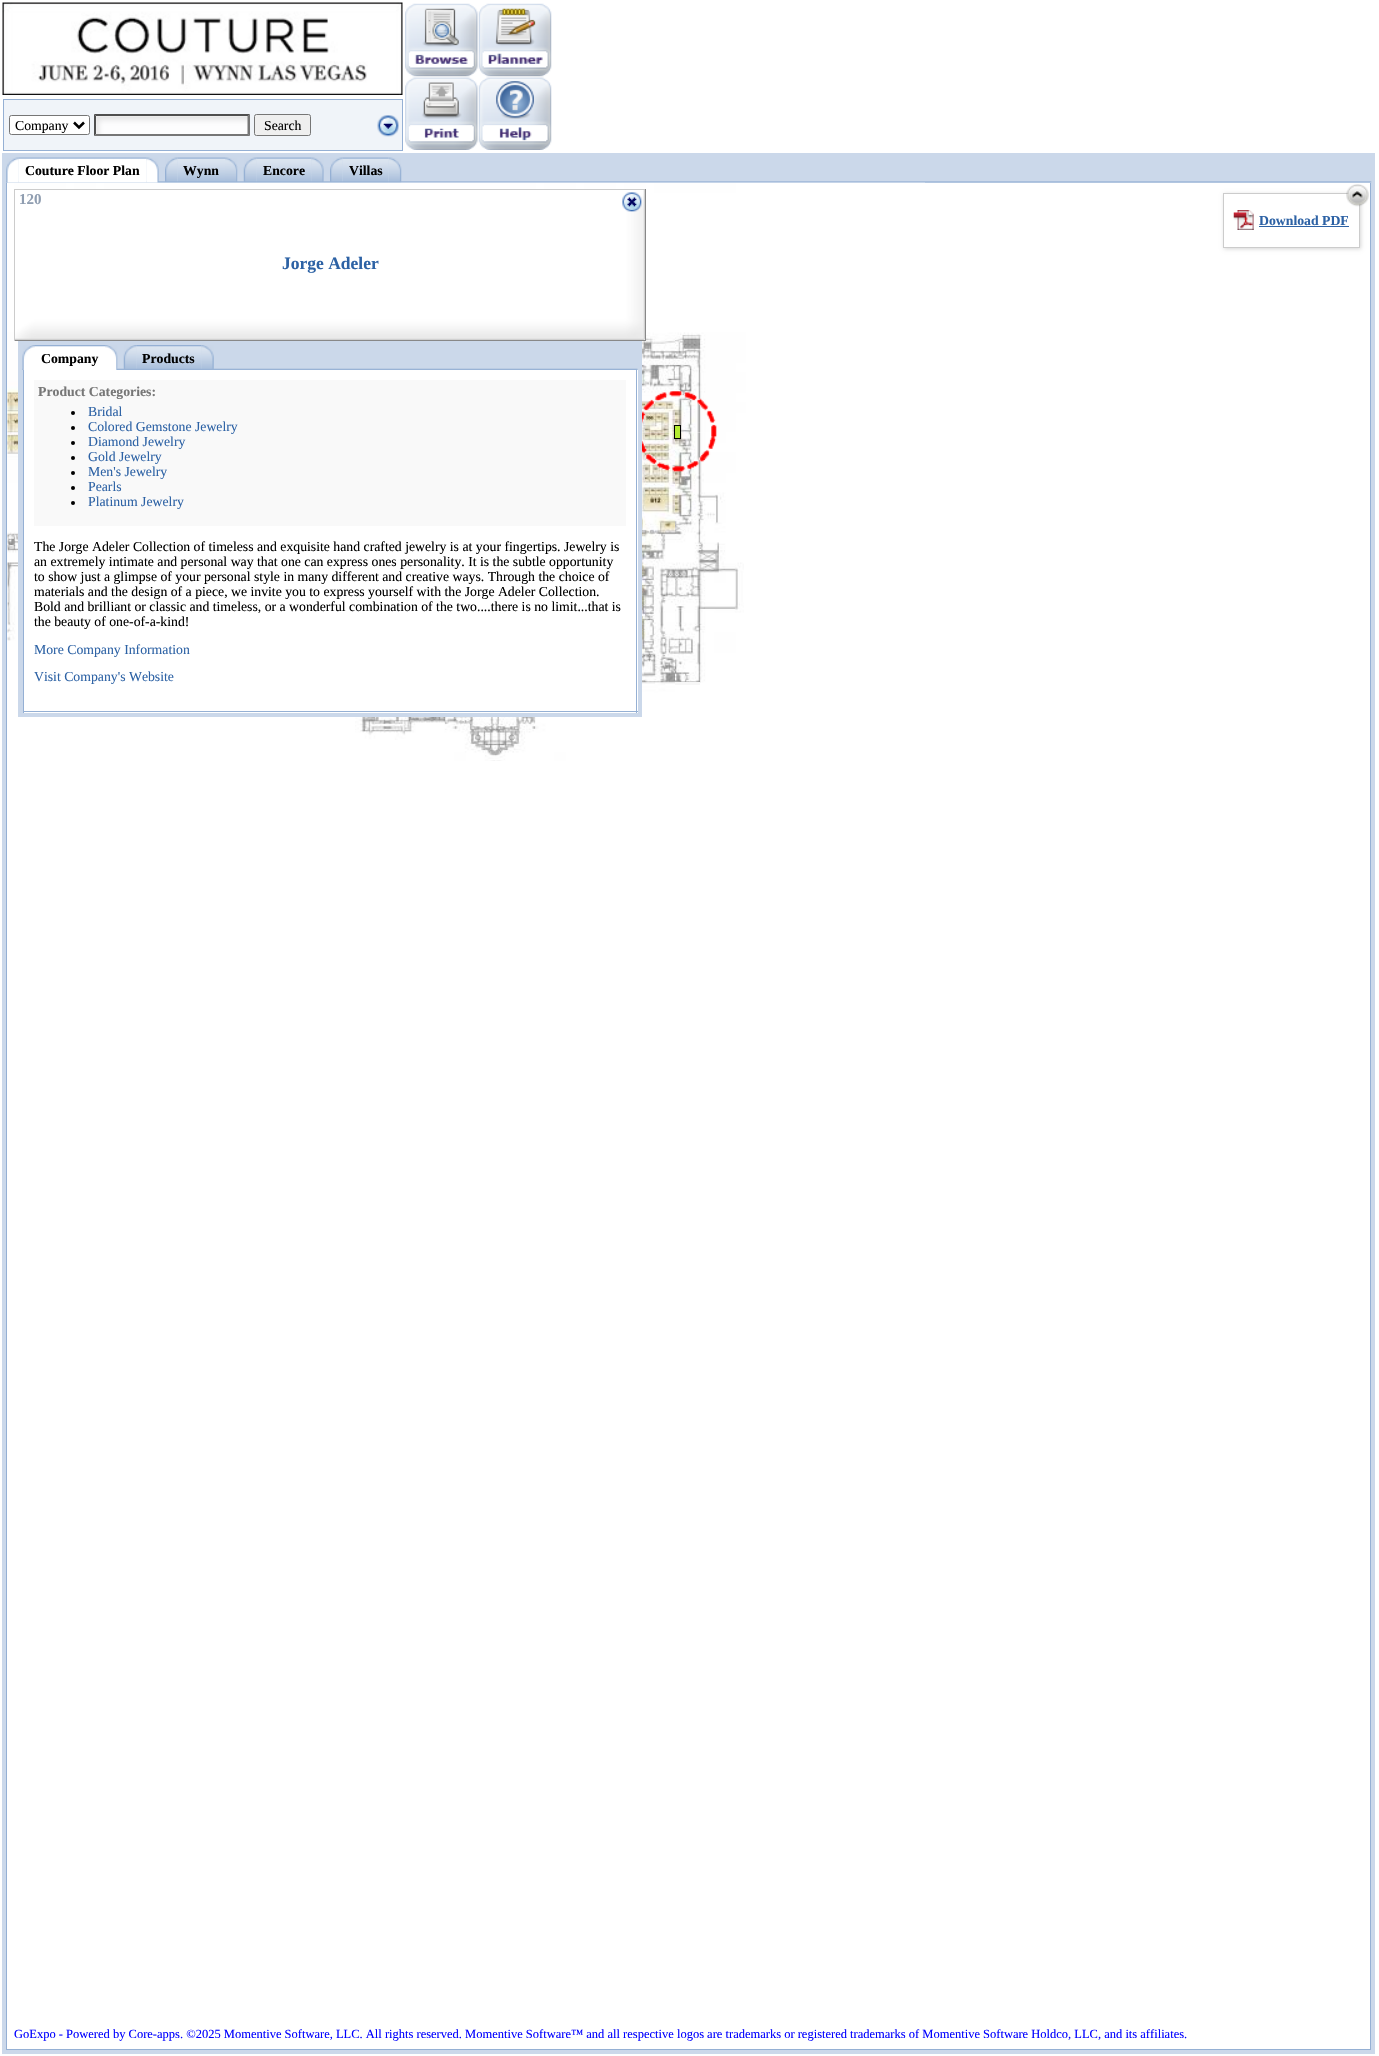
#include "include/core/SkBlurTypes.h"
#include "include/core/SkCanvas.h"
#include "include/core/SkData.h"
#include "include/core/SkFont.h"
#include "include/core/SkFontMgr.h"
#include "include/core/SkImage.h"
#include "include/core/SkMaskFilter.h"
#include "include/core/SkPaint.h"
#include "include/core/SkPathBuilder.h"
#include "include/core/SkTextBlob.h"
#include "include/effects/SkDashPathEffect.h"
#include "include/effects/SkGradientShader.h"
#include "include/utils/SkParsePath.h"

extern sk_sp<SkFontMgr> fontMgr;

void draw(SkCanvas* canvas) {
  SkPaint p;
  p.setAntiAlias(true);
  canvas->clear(SK_ColorWHITE);
  canvas->drawImageRect(SkImages::DeferredFromEncodedData(SkData::MakeFromFileName("images/1.png")), SkRect::MakeLTRB(2, 2, 403, 95), SkSamplingOptions());
  canvas->drawImageRect(SkImages::DeferredFromEncodedData(SkData::MakeFromFileName("images/2.png")), SkRect::MakeLTRB(405, 3, 478, 77), SkSamplingOptions());
  canvas->drawImageRect(SkImages::DeferredFromEncodedData(SkData::MakeFromFileName("images/3.png")), SkRect::MakeLTRB(478, 3, 552, 77), SkSamplingOptions());
  canvas->drawImageRect(SkImages::DeferredFromEncodedData(SkData::MakeFromFileName("images/4.png")), SkRect::MakeLTRB(405, 77, 478, 150), SkSamplingOptions());
  canvas->drawImageRect(SkImages::DeferredFromEncodedData(SkData::MakeFromFileName("images/5.png")), SkRect::MakeLTRB(478, 77, 552, 150), SkSamplingOptions());
  p.setColor(SkColorSetRGB(240, 244, 249));
  canvas->drawRect(SkRect::MakeLTRB(3.5f, 99.5f, 402.5f, 150.5f), p);
  p.setStyle(SkPaint::kStroke_Style);
  p.setStrokeWidth(1);
  p.setColor(SkColorSetRGB(149, 176, 212));
  canvas->drawRect(SkRect::MakeLTRB(3.5f, 99.5f, 402.5f, 150.5f), p);
  p.setStyle(SkPaint::kFill_Style);
  p.setColor(SK_ColorWHITE);
  canvas->drawRoundRect(SkRect::MakeLTRB(9.5f, 115.5f, 89.5f, 134.5f), 2, 2, p);
  p.setStyle(SkPaint::kStroke_Style);
  p.setColor(SkColorSetRGB(118, 118, 118));
  canvas->drawRoundRect(SkRect::MakeLTRB(9.5f, 115.5f, 89.5f, 134.5f), 2, 2, p);
  p.setStrokeWidth(2.5f);
  p.setColor(SK_ColorBLACK);
  canvas->drawPath(SkPathBuilder().moveTo(74, 122.5f).lineTo(79, 127.5f).lineTo(84, 122.5f).detach(), p);
  p.setStyle(SkPaint::kFill_Style);
  p.setColor(SK_ColorWHITE);
  canvas->drawRect(SkRect::MakeLTRB(94, 114, 250, 136), p);
  canvas->drawImageRect(SkImages::DeferredFromEncodedData(SkData::MakeFromFileName("images/6.png")), SkRect::MakeLTRB(96, 116, 250, 136), SkSamplingOptions());
  p.setColor(SkColorSetRGB(79, 79, 79));
  canvas->drawPath(SkPathBuilder().moveTo(94, 114).lineTo(250, 114).lineTo(248, 116).lineTo(96, 116).close().detach(), p);
  p.setColor(SkColorSetRGB(118, 118, 118));
  canvas->drawPath(SkPathBuilder().moveTo(250, 114).lineTo(250, 136).lineTo(247.5f, 134).lineTo(247.5f, 116).close().detach(), p);
  canvas->drawPath(SkPathBuilder().moveTo(250, 136).lineTo(94, 136).lineTo(96, 134).lineTo(248, 134).close().detach(), p);
  p.setColor(SkColorSetRGB(79, 79, 79));
  canvas->drawPath(SkPathBuilder().moveTo(94, 136).lineTo(94, 114).lineTo(96, 116).lineTo(96, 134).close().detach(), p);
  p.setColor(SkColorSetRGB(239, 239, 239));
  canvas->drawRoundRect(SkRect::MakeLTRB(254.5f, 114.5f, 310.5f, 135.5f), 2, 2, p);
  p.setStyle(SkPaint::kStroke_Style);
  p.setStrokeWidth(1);
  p.setColor(SkColorSetRGB(118, 118, 118));
  canvas->drawRoundRect(SkRect::MakeLTRB(254.5f, 114.5f, 310.5f, 135.5f), 2, 2, p);
  canvas->drawImageRect(SkImages::DeferredFromEncodedData(SkData::MakeFromFileName("images/7.png")), SkRect::MakeLTRB(377, 115, 399, 137), SkSamplingOptions());
  p.setStyle(SkPaint::kFill_Style);
  p.setColor(SkColorSetRGB(203, 216, 234));
  canvas->drawRect(SkRect::MakeLTRB(2, 153, 1375, 2054), p);
  canvas->drawImageRect(SkImages::DeferredFromEncodedData(SkData::MakeFromFileName("images/8.png")), SkRect::MakeLTRB(6, 181, 1372, 183), SkSamplingOptions());
  canvas->drawImageRect(SkImages::DeferredFromEncodedData(SkData::MakeFromFileName("images/9.png")), SkRect::MakeLTRB(6, 157, 19, 183), SkSamplingOptions());
  canvas->drawImageRect(SkImages::DeferredFromEncodedData(SkData::MakeFromFileName("images/10.png")), SkRect::MakeLTRB(18, 157, 147, 183), SkSamplingOptions());
  canvas->drawImageRect(SkImages::DeferredFromEncodedData(SkData::MakeFromFileName("images/11.png")), SkRect::MakeLTRB(146, 157, 159, 183), SkSamplingOptions());
  canvas->drawImageRect(SkImages::DeferredFromEncodedData(SkData::MakeFromFileName("images/12.png")), SkRect::MakeLTRB(158, 167, 165, 183), SkSamplingOptions());
  canvas->drawImageRect(SkImages::DeferredFromEncodedData(SkData::MakeFromFileName("images/13.png")), SkRect::MakeLTRB(165, 157, 178, 183), SkSamplingOptions());
  canvas->drawImageRect(SkImages::DeferredFromEncodedData(SkData::MakeFromFileName("images/14.png")), SkRect::MakeLTRB(177, 157, 225, 183), SkSamplingOptions());
  canvas->drawImageRect(SkImages::DeferredFromEncodedData(SkData::MakeFromFileName("images/15.png")), SkRect::MakeLTRB(225, 157, 238, 183), SkSamplingOptions());
  canvas->drawImageRect(SkImages::DeferredFromEncodedData(SkData::MakeFromFileName("images/16.png")), SkRect::MakeLTRB(237, 167, 244, 183), SkSamplingOptions());
  canvas->drawImageRect(SkImages::DeferredFromEncodedData(SkData::MakeFromFileName("images/17.png")), SkRect::MakeLTRB(243, 157, 257, 183), SkSamplingOptions());
  canvas->drawImageRect(SkImages::DeferredFromEncodedData(SkData::MakeFromFileName("images/18.png")), SkRect::MakeLTRB(256, 157, 312, 183), SkSamplingOptions());
  canvas->drawImageRect(SkImages::DeferredFromEncodedData(SkData::MakeFromFileName("images/19.png")), SkRect::MakeLTRB(311, 157, 324, 183), SkSamplingOptions());
  canvas->drawImageRect(SkImages::DeferredFromEncodedData(SkData::MakeFromFileName("images/12.png")), SkRect::MakeLTRB(323, 167, 330, 183), SkSamplingOptions());
  canvas->drawImageRect(SkImages::DeferredFromEncodedData(SkData::MakeFromFileName("images/13.png")), SkRect::MakeLTRB(330, 157, 343, 183), SkSamplingOptions());
  canvas->drawImageRect(SkImages::DeferredFromEncodedData(SkData::MakeFromFileName("images/20.png")), SkRect::MakeLTRB(342, 157, 389, 183), SkSamplingOptions());
  canvas->drawImageRect(SkImages::DeferredFromEncodedData(SkData::MakeFromFileName("images/21.png")), SkRect::MakeLTRB(389, 157, 402, 183), SkSamplingOptions());
  p.setColor(SK_ColorWHITE);
  canvas->drawRect(SkRect::MakeLTRB(7, 183, 1370, 2049), p);
  p.setColor(SkColorSetRGB(149, 176, 212));
  canvas->drawRect(SkRect::MakeLTRB(1370, 183, 1371, 2050), p);
  canvas->drawRect(SkRect::MakeLTRB(6, 2049, 1371, 2050), p);
  canvas->drawRect(SkRect::MakeLTRB(6, 183, 7, 2050), p);
  canvas->drawImageRect(SkImages::DeferredFromEncodedData(SkData::MakeFromFileName("images/34.png")), SkRect::MakeLTRB(7, 182, 175, 433), SkSamplingOptions());
  canvas->drawImageRect(SkImages::DeferredFromEncodedData(SkData::MakeFromFileName("images/36.png")), SkRect::MakeLTRB(425, 182, 675, 433), SkSamplingOptions());
  canvas->drawImageRect(SkImages::DeferredFromEncodedData(SkData::MakeFromFileName("images/22.png")), SkRect::MakeLTRB(15, 190, 645, 340), SkSamplingOptions());
  p.setColor(SkColorSetRGB(204, 204, 204));
  canvas->drawRect(SkRect::MakeLTRB(14, 189, 646, 190), p);
  p.setColor(SkColorSetRGB(136, 136, 136));
  canvas->drawRect(SkRect::MakeLTRB(645, 189, 646, 341), p);
  canvas->drawRect(SkRect::MakeLTRB(14, 340, 646, 341), p);
  p.setColor(SkColorSetRGB(204, 204, 204));
  canvas->drawRect(SkRect::MakeLTRB(14, 189, 15, 341), p);
  canvas->drawImageRect(SkImages::DeferredFromEncodedData(SkData::MakeFromFileName("images/23.png")), SkRect::MakeLTRB(622, 192, 642, 212), SkSamplingOptions());
  canvas->drawImageRect(SkImages::DeferredFromEncodedData(SkData::MakeFromFileName("images/40.png")), SkRect::MakeLTRB(642, 432, 675, 683), SkSamplingOptions());
  canvas->drawImageRect(SkImages::DeferredFromEncodedData(SkData::MakeFromFileName("images/42.png")), SkRect::MakeLTRB(425, 682, 675, 761), SkSamplingOptions());
  p.setColor(SkColorSetRGB(203, 216, 234));
  canvas->drawRect(SkRect::MakeLTRB(18, 341, 642, 717), p);
  canvas->drawImageRect(SkImages::DeferredFromEncodedData(SkData::MakeFromFileName("images/24.png")), SkRect::MakeLTRB(22, 368, 638, 370), SkSamplingOptions());
  canvas->drawImageRect(SkImages::DeferredFromEncodedData(SkData::MakeFromFileName("images/25.png")), SkRect::MakeLTRB(22, 345, 35, 370), SkSamplingOptions());
  canvas->drawImageRect(SkImages::DeferredFromEncodedData(SkData::MakeFromFileName("images/26.png")), SkRect::MakeLTRB(35, 345, 105, 370), SkSamplingOptions());
  canvas->drawImageRect(SkImages::DeferredFromEncodedData(SkData::MakeFromFileName("images/27.png")), SkRect::MakeLTRB(105, 345, 118, 370), SkSamplingOptions());
  canvas->drawImageRect(SkImages::DeferredFromEncodedData(SkData::MakeFromFileName("images/28.png")), SkRect::MakeLTRB(117, 354, 118, 369), SkSamplingOptions());
  canvas->drawImageRect(SkImages::DeferredFromEncodedData(SkData::MakeFromFileName("images/29.png")), SkRect::MakeLTRB(123, 345, 137, 369), SkSamplingOptions());
  canvas->drawImageRect(SkImages::DeferredFromEncodedData(SkData::MakeFromFileName("images/30.png")), SkRect::MakeLTRB(136, 345, 202, 369), SkSamplingOptions());
  canvas->drawImageRect(SkImages::DeferredFromEncodedData(SkData::MakeFromFileName("images/31.png")), SkRect::MakeLTRB(201, 345, 214, 369), SkSamplingOptions());
  p.setColor(SK_ColorWHITE);
  canvas->drawRect(SkRect::MakeLTRB(24, 370, 638, 713), p);
  p.setColor(SkColorSetRGB(149, 176, 212));
  canvas->drawRect(SkRect::MakeLTRB(636, 370, 637, 713), p);
  canvas->drawRect(SkRect::MakeLTRB(23, 711, 638, 712), p);
  canvas->drawRect(SkRect::MakeLTRB(23, 370, 24, 713), p);
  p.setColor(SkColorSetRGB(249, 249, 249));
  canvas->drawRect(SkRect::MakeLTRB(34, 380, 626, 526), p);
  p.setColor(SK_ColorBLACK);
  canvas->drawCircle(73, 413, 2, p);
  canvas->drawCircle(73, 428, 2, p);
  canvas->drawCircle(73, 443, 2, p);
  canvas->drawCircle(73, 458, 2, p);
  canvas->drawCircle(73, 473, 2, p);
  canvas->drawCircle(73, 488, 2, p);
  canvas->drawCircle(73, 503, 2, p);
  p.setColor(SkColorSetRGB(214, 214, 214));
  p.setMaskFilter(SkMaskFilter::MakeBlur(kNormal_SkBlurStyle, 2));
  canvas->drawRect(SkRect::MakeLTRB(1224, 194, 1361, 249), p);
  p.setMaskFilter(nullptr);
  p.setColor(SK_ColorWHITE);
  canvas->drawRect(SkRect::MakeLTRB(1223.5f, 193.5f, 1359.5f, 247.5f), p);
  p.setStyle(SkPaint::kStroke_Style);
  p.setColor(SkColorSetRGB(204, 204, 204));
  canvas->drawRect(SkRect::MakeLTRB(1223.5f, 193.5f, 1359.5f, 247.5f), p);
  canvas->drawImageRect(SkImages::DeferredFromEncodedData(SkData::MakeFromFileName("images/32.png")), SkRect::MakeLTRB(1346, 184, 1369, 207), SkSamplingOptions());
  canvas->drawImageRect(SkImages::DeferredFromEncodedData(SkData::MakeFromFileName("images/33.png")), SkRect::MakeLTRB(1233, 210, 1254, 230), SkSamplingOptions());
  p.setStyle(SkPaint::kFill_Style);
  p.setColor(SkColorSetRGB(45, 98, 165));
  canvas->drawRect(SkRect::MakeLTRB(1259, 226, 1349, 227), p);
  canvas->drawImageRect(SkImages::DeferredFromEncodedData(SkData::MakeFromFileName("images/35.png")), SkRect::MakeLTRB(175, 182, 425, 189), SkSamplingOptions());
  canvas->drawImageRect(SkImages::DeferredFromEncodedData(SkData::MakeFromFileName("images/37.png")), SkRect::MakeLTRB(675, 182, 925, 433), SkSamplingOptions());
  canvas->drawImageRect(SkImages::DeferredFromEncodedData(SkData::MakeFromFileName("images/41.png")), SkRect::MakeLTRB(675, 432, 744, 683), SkSamplingOptions());
  p.setColor(SkColorSetRGB(181, 236, 49));
  canvas->drawRect(SkRect::MakeLTRB(674.5f, 425.5f, 680.5f, 438.5f), p);
  p.setStyle(SkPaint::kStroke_Style);
  p.setColor(SK_ColorBLACK);
  canvas->drawRect(SkRect::MakeLTRB(674.5f, 425.5f, 680.5f, 438.5f), p);
  canvas->drawImageRect(SkImages::DeferredFromEncodedData(SkData::MakeFromFileName("images/38.png")), SkRect::MakeLTRB(642, 390, 717, 472), SkSamplingOptions());
  canvas->drawImageRect(SkImages::DeferredFromEncodedData(SkData::MakeFromFileName("images/39.png")), SkRect::MakeLTRB(7, 432, 18, 641), SkSamplingOptions());
  p.setStyle(SkPaint::kFill_Style);
  p.setColor(SkColorSetRGB(247, 247, 247));
  canvas->drawRect(SkRect::MakeLTRB(675, 682, 700, 685), p);
  canvas->drawImageRect(SkImages::DeferredFromEncodedData(SkData::MakeFromFileName("images/43.png")), SkRect::MakeLTRB(355, 717, 425, 740), SkSamplingOptions());
  SkFont font1(fontMgr->matchFamilyStyle("Liberation Serif", SkFontStyle::Normal()), 13.75f);
  font1.setSubpixel(true);
  p.setColor(SK_ColorBLACK);
  canvas->drawString("Company", 15, 130, font1, p);
  canvas->drawString("Search", 264, 130, font1, p);
  SkFont font2(fontMgr->matchFamilyStyle("Liberation Serif", SkFontStyle::Bold()), 13.75f);
  font2.setSubpixel(true);
  canvas->drawString("Couture Floor Plan", 25, 175, font2, p);
  canvas->drawString("Wynn", 183, 175, font2, p);
  canvas->drawString("Encore", 263, 175, font2, p);
  canvas->drawString("Villas", 349, 175, font2, p);
  SkFont font3(fontMgr->matchFamilyStyle("Liberation Serif", SkFontStyle::Bold()), 15);
  font3.setSubpixel(true);
  p.setColor(SkColorSetRGB(144, 158, 177));
  canvas->drawString("120", 19, 204, font3, p);
  SkFont font4(fontMgr->matchFamilyStyle("Liberation Serif", SkFontStyle::Bold()), 17.5f);
  font4.setSubpixel(true);
  p.setColor(SkColorSetRGB(45, 98, 165));
  canvas->drawString("Jorge Adeler", 282, 269, font4, p);
  p.setColor(SK_ColorBLACK);
  canvas->drawString("Company", 41, 363, font2, p);
  canvas->drawString("Products", 142, 363, font2, p);
  p.setColor(SkColorSetRGB(119, 119, 119));
  canvas->drawString("Product Categories:", 38, 396, font2, p);
  p.setColor(SkColorSetRGB(45, 98, 165));
  canvas->drawString("Bridal", 88, 416, font1, p);
  canvas->drawString("Colored Gemstone Jewelry", 88, 431, font1, p);
  canvas->drawString("Diamond Jewelry", 88, 446, font1, p);
  canvas->drawString("Gold Jewelry", 88, 461, font1, p);
  canvas->drawString("Men's Jewelry", 88, 476, font1, p);
  canvas->drawString("Pearls", 88, 491, font1, p);
  canvas->drawString("Platinum Jewelry", 88, 506, font1, p);
  p.setColor(SK_ColorBLACK);
  canvas->drawString("The Jorge Adeler Collection of timeless and exquisite hand crafted jewelry is at your fingertips. Jewelry is", 34, 551, font1, p);
  canvas->drawString("an extremely intimate and personal way that one can express ones personality. It is the subtle opportunity", 34, 566, font1, p);
  canvas->drawString("to show just a glimpse of your personal style in many different and creative ways. Through the choice of", 34, 581, font1, p);
  canvas->drawString("materials and the design of a piece, we invite you to express yourself with the Jorge Adeler Collection.", 34, 596, font1, p);
  canvas->drawString("Bold and brilliant or classic and timeless, or a wonderful combination of the two....there is no limit...that is", 34, 611, font1, p);
  canvas->drawString("the beauty of one-of-a-kind!", 34, 626, font1, p);
  p.setColor(SkColorSetRGB(45, 98, 165));
  canvas->drawString("More Company Information", 34, 654, font1, p);
  canvas->drawString("Visit Company's Website", 34, 681, font1, p);
  canvas->drawString("Download PDF", 1259, 225, font2, p);
  SkFont font5(fontMgr->matchFamilyStyle("Liberation Serif", SkFontStyle::Normal()), 12.5f);
  font5.setSubpixel(true);
  p.setColor(SkColorSetRGB(0, 0, 255));
  canvas->drawString("GoExpo - Powered by Core-apps. ©2025 Momentive Software, LLC. All rights reserved. Momentive Software™ and all respective logos are trademarks or registered trademarks of Momentive Software Holdco, LLC, and its affiliates.", 14, 2038, font5, p);
}
